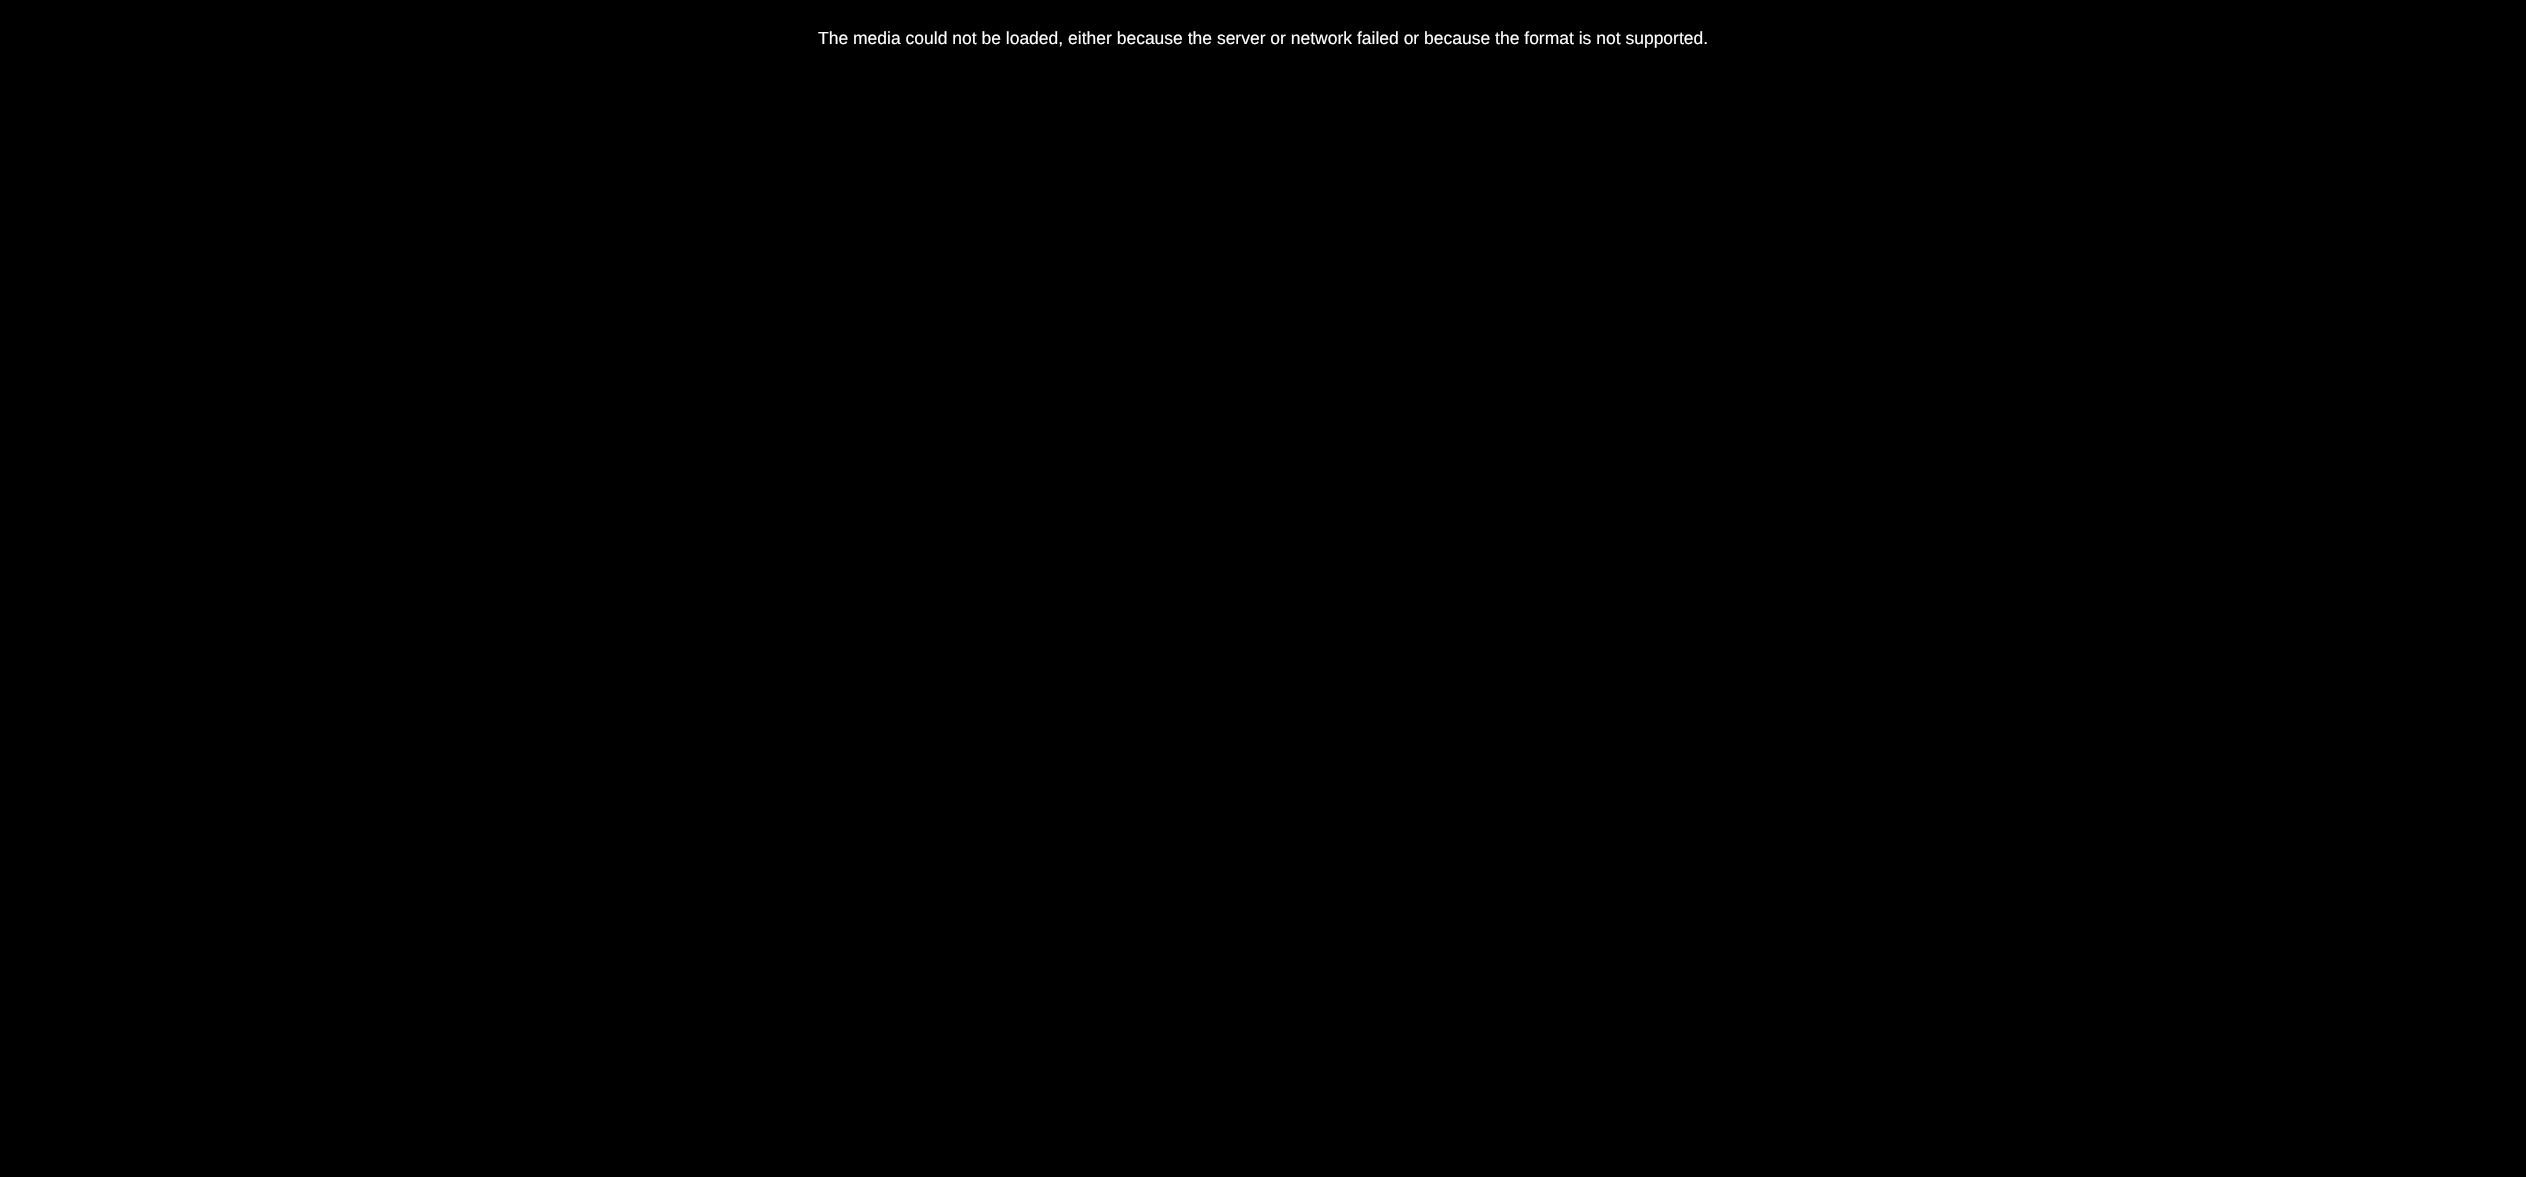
#include "include/core/SkBlurTypes.h"
#include "include/core/SkCanvas.h"
#include "include/core/SkData.h"
#include "include/core/SkFont.h"
#include "include/core/SkFontMgr.h"
#include "include/core/SkImage.h"
#include "include/core/SkMaskFilter.h"
#include "include/core/SkPaint.h"
#include "include/core/SkPathBuilder.h"
#include "include/core/SkTextBlob.h"
#include "include/effects/SkDashPathEffect.h"
#include "include/effects/SkGradientShader.h"
#include "include/utils/SkParsePath.h"

extern sk_sp<SkFontMgr> fontMgr;

void draw(SkCanvas* canvas) {
  SkPaint p;
  p.setAntiAlias(true);
  canvas->clear(SK_ColorBLACK);
  SkFont font1(fontMgr->matchFamilyStyle("Liberation Sans", SkFontStyle::Normal()), 17.5f);
  font1.setSubpixel(true);
  p.setColor(SK_ColorWHITE);
  canvas->drawString("The media could not be loaded, either because the server or network failed or because the format is not supported.", 818, 44, font1, p);
}
